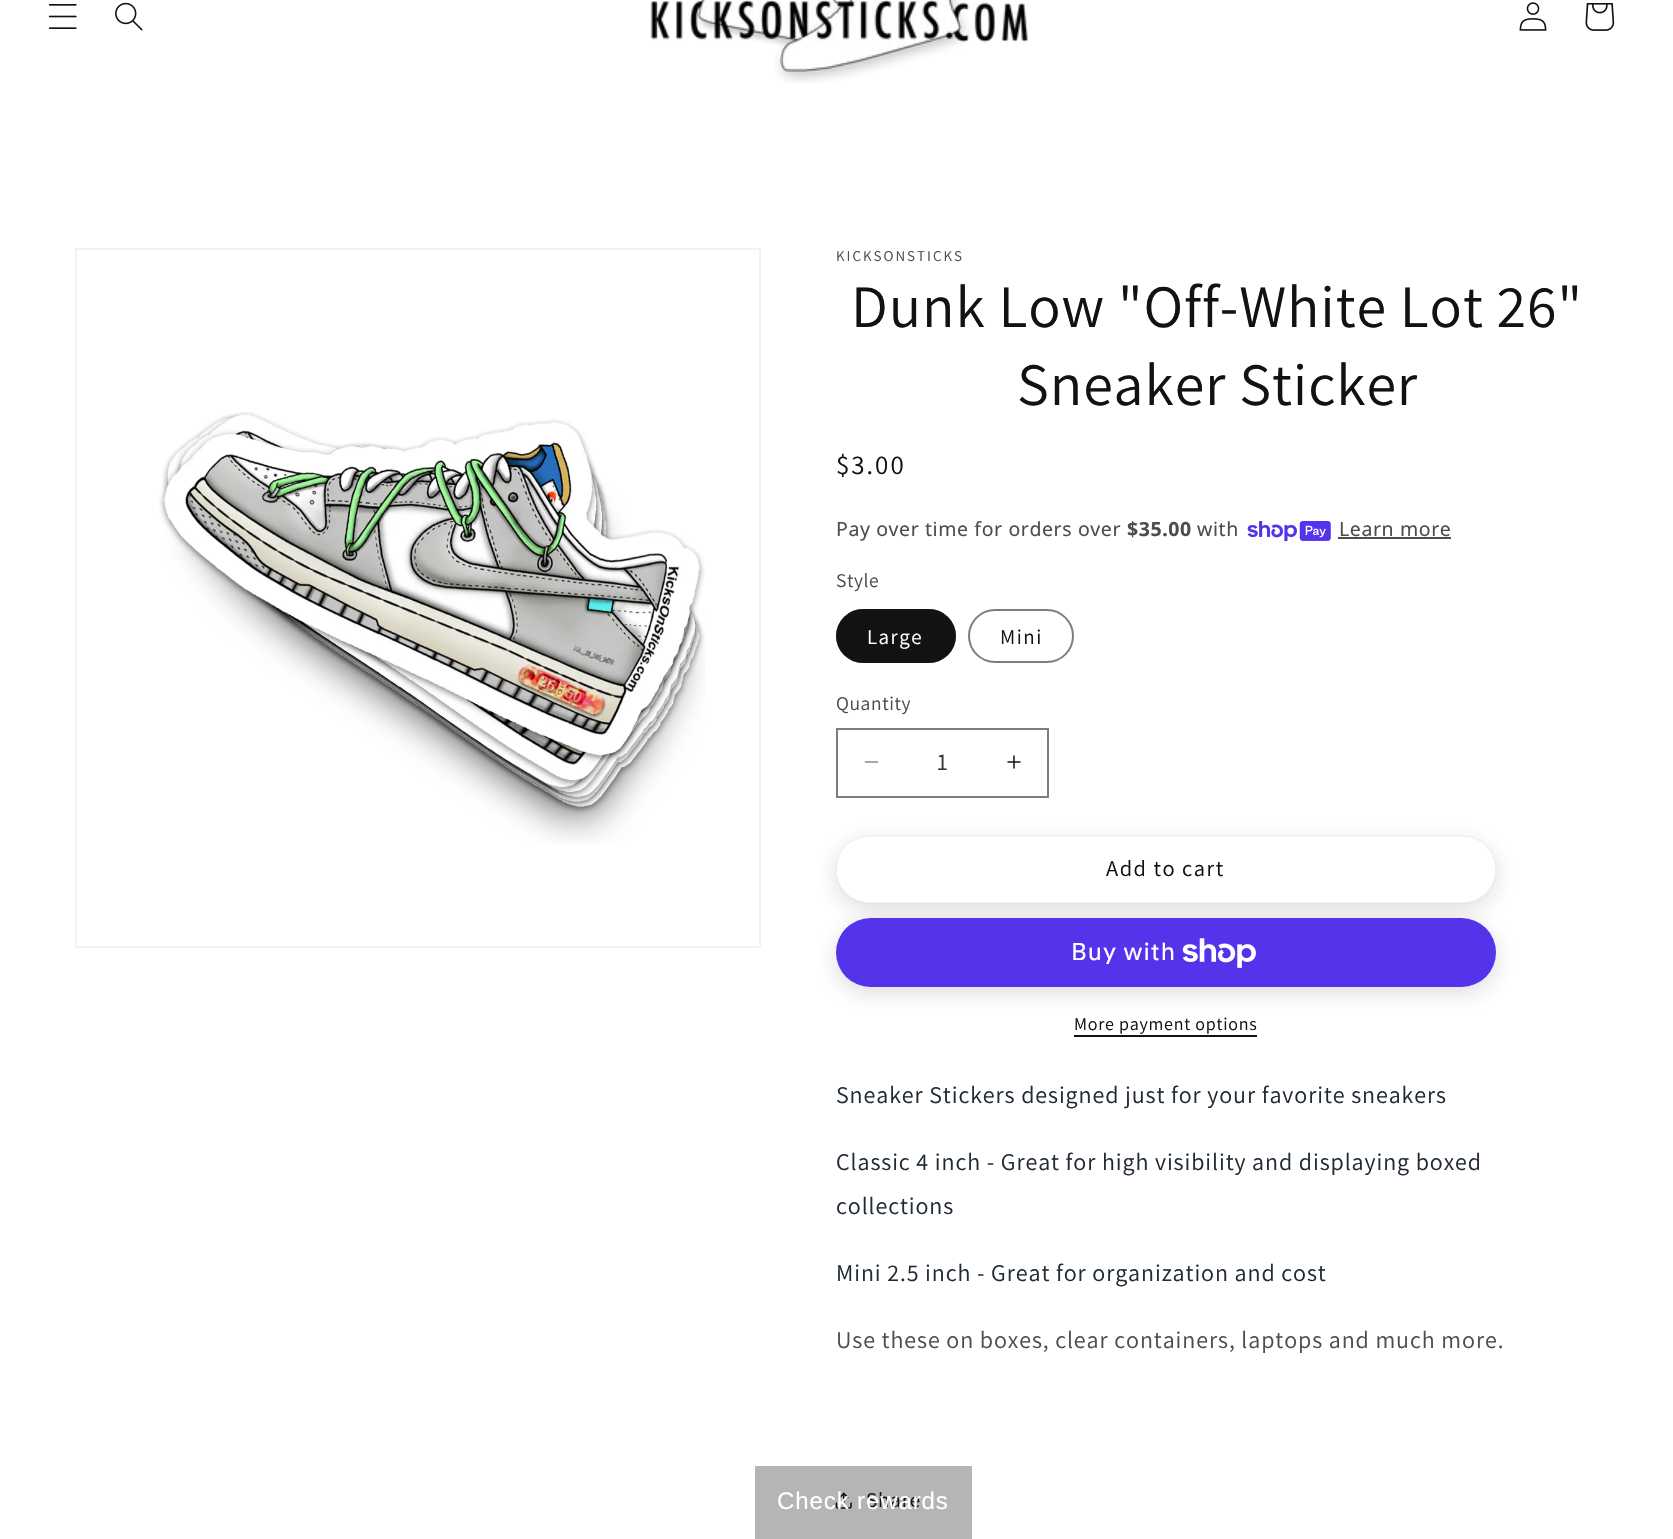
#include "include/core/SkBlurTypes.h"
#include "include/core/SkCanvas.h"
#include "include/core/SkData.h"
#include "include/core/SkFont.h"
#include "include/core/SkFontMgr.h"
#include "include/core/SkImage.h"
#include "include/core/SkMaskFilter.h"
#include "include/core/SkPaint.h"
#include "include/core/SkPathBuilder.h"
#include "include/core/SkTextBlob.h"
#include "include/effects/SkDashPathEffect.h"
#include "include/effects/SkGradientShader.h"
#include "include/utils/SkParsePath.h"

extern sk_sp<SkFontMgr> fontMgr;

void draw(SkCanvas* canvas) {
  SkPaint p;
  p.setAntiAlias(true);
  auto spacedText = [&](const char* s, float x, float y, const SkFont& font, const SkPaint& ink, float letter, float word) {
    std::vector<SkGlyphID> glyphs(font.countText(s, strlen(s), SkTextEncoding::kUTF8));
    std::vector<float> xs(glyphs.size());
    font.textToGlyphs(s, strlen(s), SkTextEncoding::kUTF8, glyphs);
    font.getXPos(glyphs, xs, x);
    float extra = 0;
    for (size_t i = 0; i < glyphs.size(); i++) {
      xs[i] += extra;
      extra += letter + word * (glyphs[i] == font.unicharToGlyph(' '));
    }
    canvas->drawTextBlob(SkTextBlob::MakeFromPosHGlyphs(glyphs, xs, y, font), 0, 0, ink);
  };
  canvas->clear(SK_ColorWHITE);
  p.setColor(SkColorSetRGB(181, 181, 181));
  canvas->drawRect(SkRect::MakeLTRB(755, 1466, 972, 1539), p);
  canvas->drawImageRect(SkImages::DeferredFromEncodedData(SkData::MakeFromFileName("images/1.png")), SkRect::MakeLTRB(48, 4, 77, 29), SkSamplingOptions());
  canvas->drawImageRect(SkImages::DeferredFromEncodedData(SkData::MakeFromFileName("images/2.png")), SkRect::MakeLTRB(115, 2, 143, 31), SkSamplingOptions());
  canvas->drawImageRect(SkImages::DeferredFromEncodedData(SkData::MakeFromFileName("images/3.png")), SkRect::MakeLTRB(650, 0, 1028, 83), SkSamplingOptions());
  canvas->drawImageRect(SkImages::DeferredFromEncodedData(SkData::MakeFromFileName("images/4.png")), SkRect::MakeLTRB(1519, 2, 1547, 31), SkSamplingOptions());
  canvas->drawImageRect(SkImages::DeferredFromEncodedData(SkData::MakeFromFileName("images/5.png")), SkRect::MakeLTRB(1585, 3, 1615, 31), SkSamplingOptions());
  p.setStyle(SkPaint::kStroke_Style);
  p.setStrokeWidth(2);
  p.setColor(SkColorSetRGB(243, 243, 243));
  canvas->drawRect(SkRect::MakeLTRB(76, 249, 760, 947), p);
  canvas->drawImageRect(SkImages::DeferredFromEncodedData(SkData::MakeFromFileName("images/6.png")), SkRect::MakeLTRB(159, 412, 705, 844), SkSamplingOptions());
  canvas->drawImageRect(SkImages::DeferredFromEncodedData(SkData::MakeFromFileName("images/7.png")), SkRect::MakeLTRB(1247, 521, 1331, 542), SkSamplingOptions());
  p.setStyle(SkPaint::kFill_Style);
  p.setColor(SkColorSetRGB(77, 77, 77));
  canvas->drawRect(SkRect::MakeLTRB(1338, 537, 1451, 539), p);
  p.setColor(SkColorSetRGB(18, 18, 18));
  canvas->drawRoundRect(SkRect::MakeLTRB(836, 609, 956, 663), 27, 27, p);
  p.setStyle(SkPaint::kStroke_Style);
  p.setColor(SkColorSetARGB(140, 18, 18, 18));
  canvas->drawRoundRect(SkRect::MakeLTRB(837, 610, 955, 662), 26, 26, p);
  p.setColor(SkColorSetRGB(125, 125, 125));
  canvas->drawRoundRect(SkRect::MakeLTRB(969, 610, 1073, 662), 26, 26, p);
  canvas->drawImageRect(SkImages::DeferredFromEncodedData(SkData::MakeFromFileName("images/8.png")), SkRect::MakeLTRB(864, 761, 879, 763), SkSamplingOptions());
  canvas->drawImageRect(SkImages::DeferredFromEncodedData(SkData::MakeFromFileName("images/9.png")), SkRect::MakeLTRB(1007, 755, 1021, 769), SkSamplingOptions());
  canvas->drawRect(SkRect::MakeLTRB(837, 729, 1048, 797), p);
  p.setStyle(SkPaint::kFill_Style);
  p.setColor(SkColorSetARGB(38, 18, 18, 18));
  p.setMaskFilter(SkMaskFilter::MakeBlur(kNormal_SkBlurStyle, 11));
  canvas->drawRoundRect(SkRect::MakeLTRB(836, 842, 1496, 909), 33.5f, 33.5f, p);
  p.setMaskFilter(nullptr);
  p.setMaskFilter(SkMaskFilter::MakeBlur(kNormal_SkBlurStyle, 11));
  canvas->drawRoundRect(SkRect::MakeLTRB(836, 924, 1496, 993), 34.5f, 34.5f, p);
  p.setMaskFilter(nullptr);
  p.setColor(SK_ColorWHITE);
  canvas->drawRoundRect(SkRect::MakeLTRB(836, 836, 1496, 903), 33.5f, 33.5f, p);
  p.setStyle(SkPaint::kStroke_Style);
  p.setStrokeWidth(0.4f);
  p.setColor(SkColorSetARGB(38, 18, 18, 18));
  canvas->drawRoundRect(SkRect::MakeLTRB(836.2f, 836.2f, 1495.8f, 902.8f), 33.3f, 33.3f, p);
  p.setStyle(SkPaint::kFill_Style);
  p.setColor(SkColorSetRGB(84, 51, 235));
  canvas->drawRoundRect(SkRect::MakeLTRB(836, 918, 1496, 987), 34.5f, 34.5f, p);
  canvas->drawImageRect(SkImages::DeferredFromEncodedData(SkData::MakeFromFileName("images/10.png")), SkRect::MakeLTRB(1182, 938, 1256, 968), SkSamplingOptions());
  p.setColor(SkColorSetRGB(18, 18, 18));
  canvas->drawRect(SkRect::MakeLTRB(1074, 1035, 1257, 1037), p);
  canvas->drawImageRect(SkImages::DeferredFromEncodedData(SkData::MakeFromFileName("images/11.png")), SkRect::MakeLTRB(835, 1492, 852, 1509), SkSamplingOptions());
  SkFont font1(fontMgr->matchFamilyStyle("Assistant", SkFontStyle::Normal()), 15);
  font1.setSubpixel(true);
  p.setColor(SkColorSetRGB(77, 77, 77));
  spacedText("KICKSONSTICKS", 836, 261, font1, p, 2, 0);
  SkFont font2(fontMgr->matchFamilyStyle("Assistant", SkFontStyle::Normal()), 60);
  font2.setSubpixel(true);
  p.setColor(SkColorSetRGB(18, 18, 18));
  spacedText("Dunk Low \"Off-White Lot 26\"", 851, 327, font2, p, 0.9f, 0);
  spacedText("Sneaker Sticker", 1017, 405, font2, p, 0.9f, 0);
  SkFont font3(fontMgr->matchFamilyStyle("Assistant", SkFontStyle::Normal()), 27);
  font3.setSubpixel(true);
  spacedText("$3.00", 836, 474, font3, p, 2, 0);
  SkFont font4(fontMgr->matchFamilyStyle("Noto Sans", SkFontStyle::Normal()), 19.5f);
  font4.setSubpixel(true);
  p.setColor(SkColorSetRGB(77, 77, 77));
  spacedText("Pay over time for orders over", 836, 536, font4, p, 0.6f, 0);
  SkFont font5(fontMgr->matchFamilyStyle("Noto Sans", SkFontStyle::Bold()), 19.5f);
  font5.setSubpixel(true);
  spacedText("$35.00", 1127, 536, font5, p, 0.6f, 0);
  spacedText("with", 1197, 536, font4, p, 0.6f, 0);
  spacedText("Learn more", 1339, 536, font4, p, 0.6f, 0);
  SkFont font6(fontMgr->matchFamilyStyle("Assistant", SkFontStyle::Normal()), 19.5f);
  font6.setSubpixel(true);
  spacedText("Style", 836, 587, font6, p, 0.6f, 0);
  SkFont font7(fontMgr->matchFamilyStyle("Assistant", SkFontStyle::Normal()), 21);
  font7.setSubpixel(true);
  p.setColor(SK_ColorWHITE);
  spacedText("Large", 867, 644, font7, p, 1.5f, 0);
  p.setColor(SkColorSetRGB(18, 18, 18));
  spacedText("Mini", 1000, 644, font7, p, 1.5f, 0);
  p.setColor(SkColorSetRGB(77, 77, 77));
  spacedText("Quantity", 836, 710, font6, p, 0.6f, 0);
  SkFont font8(fontMgr->matchFamilyStyle("Assistant", SkFontStyle::Normal()), 24);
  font8.setSubpixel(true);
  p.setColor(SkColorSetRGB(54, 54, 54));
  canvas->drawString("1", 937, 770, font8, p);
  SkFont font9(fontMgr->matchFamilyStyle("Assistant", SkFontStyle::Normal()), 22.5f);
  font9.setSubpixel(true);
  p.setColor(SkColorSetRGB(18, 18, 18));
  spacedText("Add to cart", 1106, 876, font9, p, 1.5f, 0);
  SkFont font10(fontMgr->matchFamilyStyle("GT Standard", SkFontStyle::Normal()), 24);
  font10.setSubpixel(true);
  p.setColor(SK_ColorWHITE);
  spacedText("Buy with", 1071, 960, font10, p, 0.9f, 0);
  SkFont font11(fontMgr->matchFamilyStyle("Assistant", SkFontStyle::Normal()), 18);
  font11.setSubpixel(true);
  p.setColor(SkColorSetRGB(18, 18, 18));
  spacedText("More payment options", 1074, 1030, font11, p, 0.75f, 0);
  p.setColor(SkColorSetRGB(33, 43, 54));
  spacedText("Sneaker Stickers designed just for your favorite sneakers", 836, 1103, font8, p, 0.9f, 0);
  spacedText("Classic 4 inch - Great for high visibility and displaying boxed", 836, 1170, font8, p, 0.9f, 0);
  spacedText("collections", 836, 1214, font8, p, 0.9f, 0);
  spacedText("Mini 2.5 inch - Great for organization and cost", 836, 1281, font8, p, 0.9f, 0);
  p.setColor(SkColorSetRGB(77, 77, 77));
  spacedText("Use these on boxes, clear containers, laptops and much more.", 836, 1348, font8, p, 0.9f, 0);
  p.setColor(SkColorSetRGB(18, 18, 18));
  spacedText("Share", 866, 1507, font7, p, 0.9f, 0);
  SkFont font12(fontMgr->matchFamilyStyle("Liberation Sans", SkFontStyle::Normal()), 24);
  font12.setSubpixel(true);
  p.setColor(SK_ColorWHITE);
  spacedText("Check rewards", 777, 1509, font12, p, 0.9f, 0);
}
